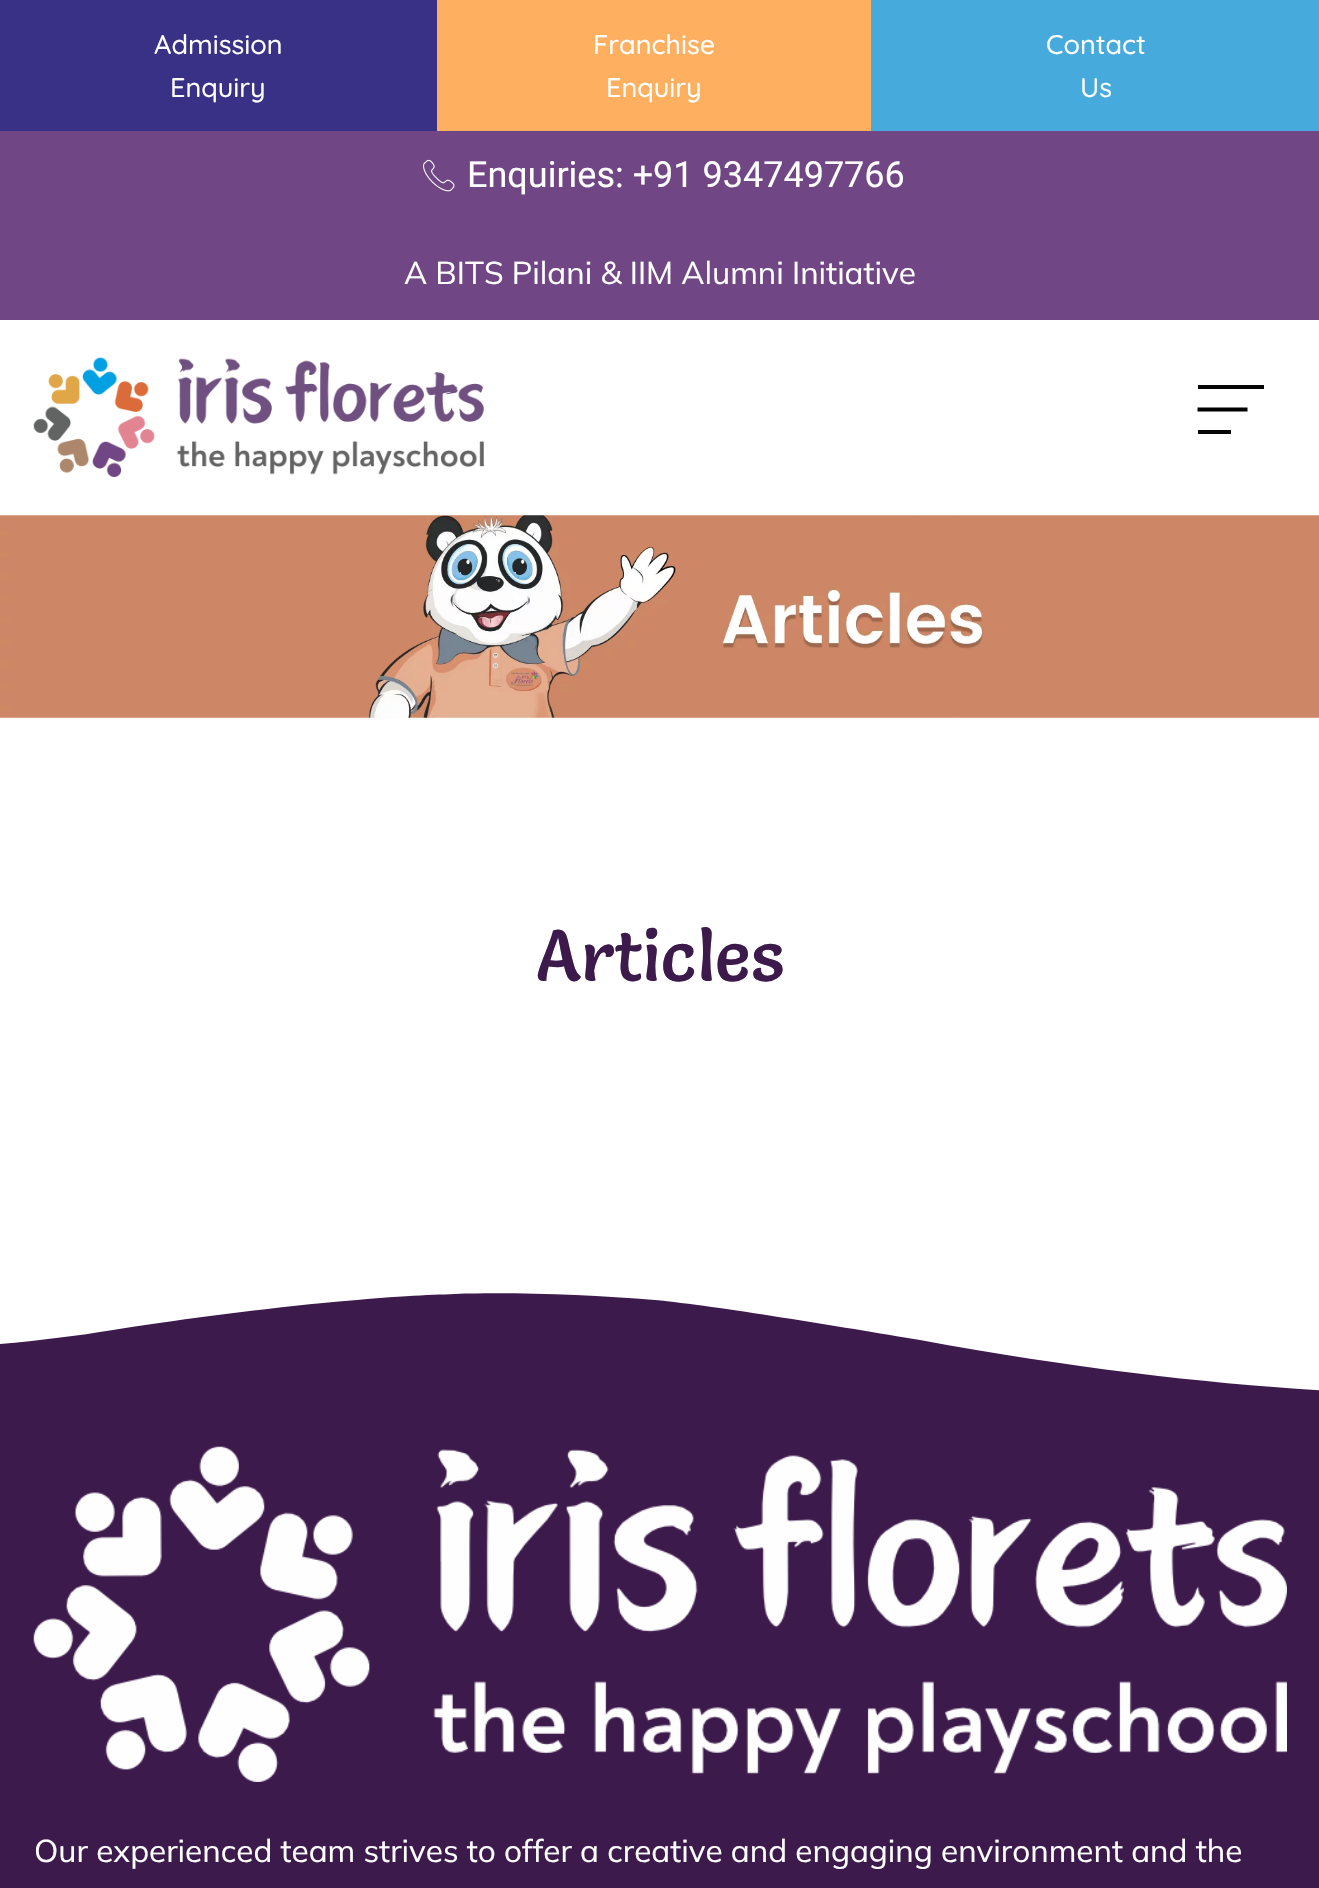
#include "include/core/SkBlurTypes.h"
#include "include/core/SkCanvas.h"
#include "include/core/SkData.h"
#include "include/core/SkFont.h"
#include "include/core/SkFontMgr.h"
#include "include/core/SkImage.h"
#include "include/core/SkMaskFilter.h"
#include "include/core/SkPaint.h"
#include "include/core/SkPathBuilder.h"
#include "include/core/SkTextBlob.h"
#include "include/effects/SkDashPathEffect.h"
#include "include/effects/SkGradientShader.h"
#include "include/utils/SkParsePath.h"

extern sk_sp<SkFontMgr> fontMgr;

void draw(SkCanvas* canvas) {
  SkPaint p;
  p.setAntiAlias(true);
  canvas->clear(SK_ColorWHITE);
  p.setColor(SkColorSetRGB(57, 49, 133));
  canvas->drawRect(SkRect::MakeLTRB(0, 0, 437, 131), p);
  p.setColor(SkColorSetRGB(255, 175, 96));
  canvas->drawRect(SkRect::MakeLTRB(437, 0, 871, 131), p);
  p.setColor(SkColorSetRGB(70, 170, 220));
  canvas->drawRect(SkRect::MakeLTRB(871, 0, 1319, 131), p);
  p.setColor(SkColorSetRGB(61, 26, 76));
  canvas->drawRect(SkRect::MakeLTRB(0, 1293, 1319, 1888), p);
  p.setColor(SK_ColorWHITE);
  canvas->drawPath(SkPathBuilder().moveTo(455, 1294).cubicTo(515, 1292, 591, 1295, 655, 1300).cubicTo(717, 1306, 842, 1327, 920, 1340).cubicTo(1121, 1377, 1274, 1390, 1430, 1396).cubicTo(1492, 1399, 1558, 1400, 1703, 1394).cubicTo(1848, 1387, 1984, 1365, 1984, 1365).lineTo(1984, 1287).lineTo(-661, 1287).lineTo(-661, 1321).cubicTo(-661, 1321, -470, 1358, -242, 1355).cubicTo(-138, 1355, 4, 1348, 113, 1330).cubicTo(169, 1321, 251, 1310, 323, 1303).cubicTo(395, 1296, 428, 1295, 455, 1294).close().detach(), p);
  canvas->drawImageRect(SkImages::DeferredFromEncodedData(SkData::MakeFromFileName("images/1.png")), SkRect::MakeLTRB(33, 1446, 1287, 1782), SkSamplingOptions());
  p.setColor(SkColorSetRGB(113, 70, 132));
  canvas->drawRect(SkRect::MakeLTRB(0, 131, 1319, 320), p);
  canvas->drawImageRect(SkImages::DeferredFromEncodedData(SkData::MakeFromFileName("images/2.png")), SkRect::MakeLTRB(423, 159, 455, 192), SkSamplingOptions());
  canvas->drawImageRect(SkImages::DeferredFromEncodedData(SkData::MakeFromFileName("images/3.png")), SkRect::MakeLTRB(33, 357, 484, 477), SkSamplingOptions());
  p.setColor(SkColorSetRGB(6, 6, 6));
  canvas->drawRect(SkRect::MakeLTRB(1198, 385, 1264, 389), p);
  p.setStyle(SkPaint::kStroke_Style);
  p.setStrokeWidth(3.9f);
  p.setColor(SK_ColorBLACK);
  canvas->drawPath(SkPathBuilder().moveTo(1247.5f, 409.5f).lineTo(1197.5f, 409.5f).detach(), p);
  p.setStyle(SkPaint::kFill_Style);
  p.setColor(SkColorSetRGB(6, 6, 6));
  canvas->drawRect(SkRect::MakeLTRB(1198, 430, 1231, 434), p);
  canvas->drawImageRect(SkImages::DeferredFromEncodedData(SkData::MakeFromFileName("images/4.png")), SkRect::MakeLTRB(0, 515, 1319, 718), SkSamplingOptions());
  SkFont font1(fontMgr->matchFamilyStyle("Quicksand", SkFontStyle(500, SkFontStyle::kNormal_Width, SkFontStyle::kUpright_Slant)), 27);
  font1.setSubpixel(true);
  p.setColor(SK_ColorWHITE);
  canvas->drawString("Admission", 154, 54, font1, p);
  canvas->drawString("Enquiry", 170, 97, font1, p);
  canvas->drawString("Franchise", 593, 54, font1, p);
  canvas->drawString("Enquiry", 606, 97, font1, p);
  canvas->drawString("Contact", 1046, 54, font1, p);
  canvas->drawString("Us", 1080, 97, font1, p);
  SkFont font2(fontMgr->matchFamilyStyle("Mulish", SkFontStyle::Normal()), 31.5f);
  font2.setSubpixel(true);
  canvas->drawString("Our experienced team strives to offer a creative and engaging environment and the", 34, 1862, font2, p);
  SkFont font3(fontMgr->matchFamilyStyle("Roboto", SkFontStyle::Normal()), 36);
  font3.setSubpixel(true);
  canvas->drawString("Enquiries: +91 9347497766", 467, 187, font3, p);
  canvas->drawString("A BITS Pilani & IIM Alumni Initiative", 404, 284, font2, p);
  SkFont font4(fontMgr->matchFamilyStyle("Salsa", SkFontStyle::Normal()), 72);
  font4.setSubpixel(true);
  p.setColor(SkColorSetRGB(61, 26, 76));
  canvas->drawString("Articles", 537, 981, font4, p);
}
